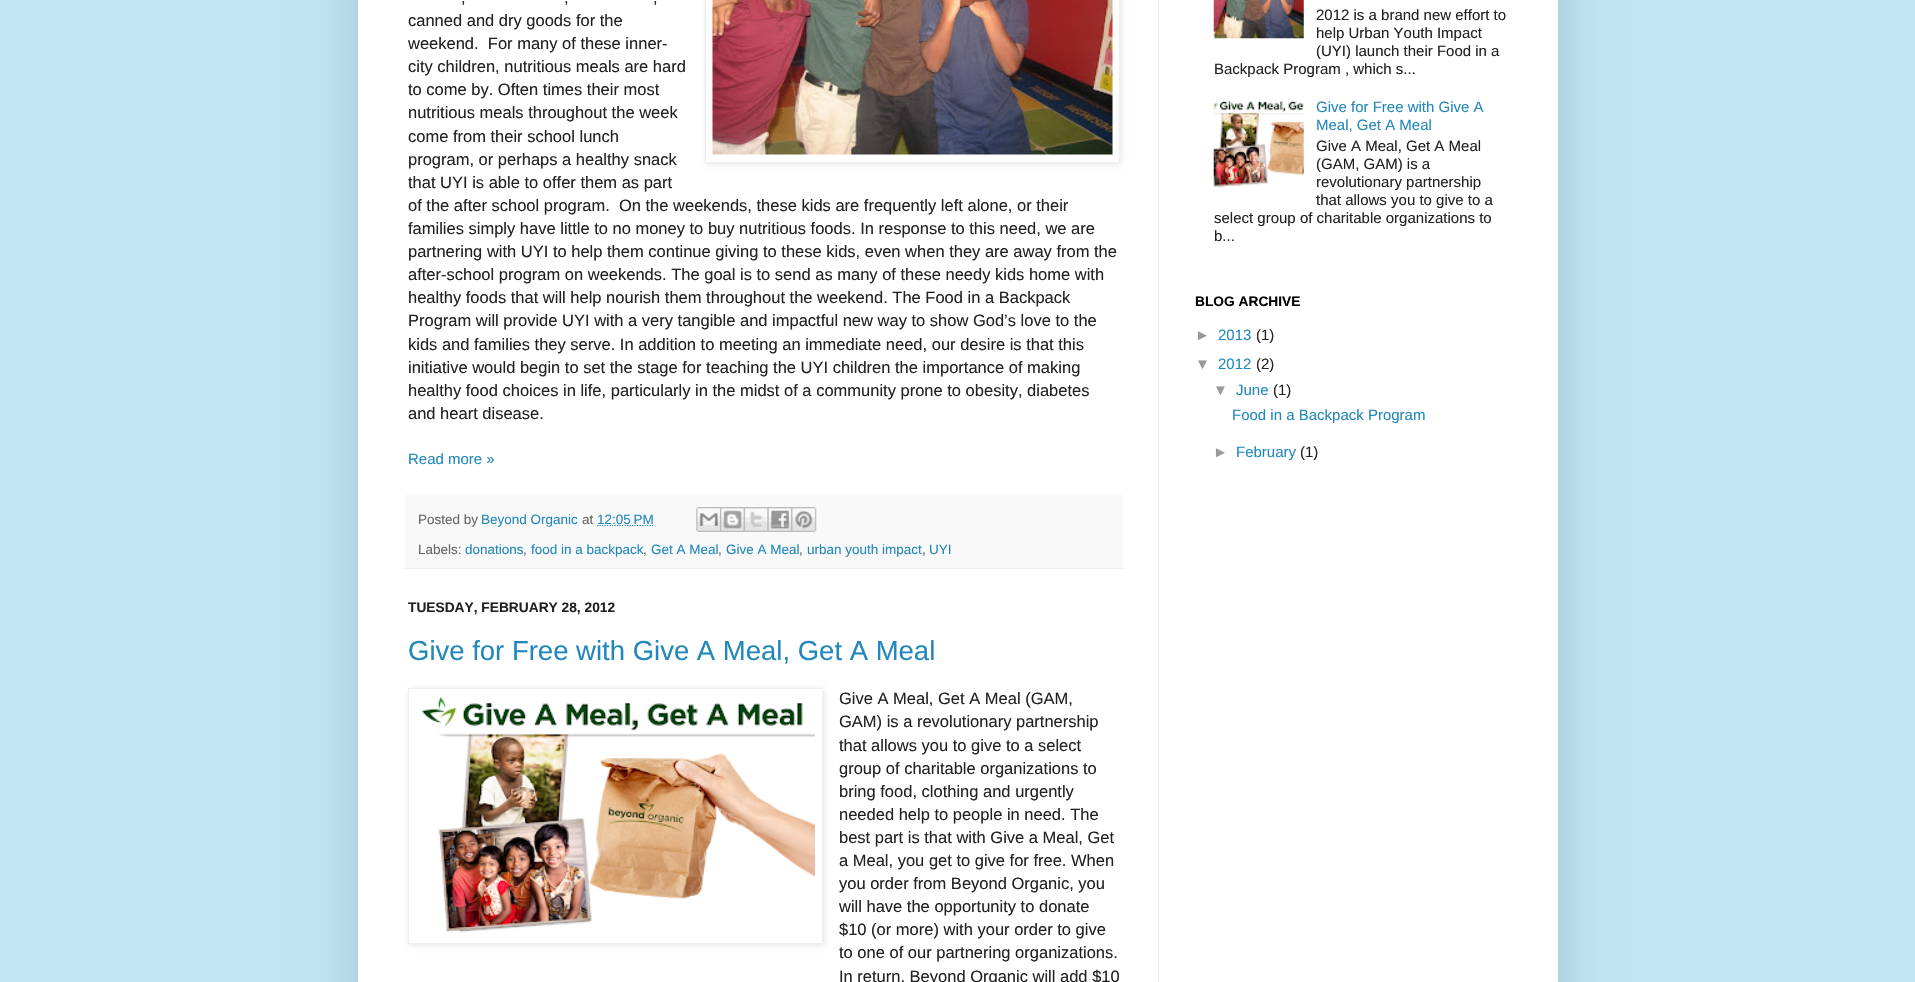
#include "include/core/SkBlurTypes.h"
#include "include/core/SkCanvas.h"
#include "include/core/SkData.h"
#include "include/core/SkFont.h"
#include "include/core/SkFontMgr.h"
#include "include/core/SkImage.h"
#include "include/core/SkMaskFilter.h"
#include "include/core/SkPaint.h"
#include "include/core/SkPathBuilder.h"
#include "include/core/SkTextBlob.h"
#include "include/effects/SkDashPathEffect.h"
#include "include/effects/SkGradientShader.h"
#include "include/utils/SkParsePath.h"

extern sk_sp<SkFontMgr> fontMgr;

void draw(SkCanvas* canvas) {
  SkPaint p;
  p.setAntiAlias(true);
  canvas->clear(SkColorSetRGB(193, 229, 242));
  p.setColor(SkColorSetARGB(38, 0, 0, 0));
  p.setMaskFilter(SkMaskFilter::MakeBlur(kNormal_SkBlurStyle, 25));
  canvas->drawRect(SkRect::MakeLTRB(358, -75, 1558, 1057), p);
  p.setMaskFilter(nullptr);
  p.setColor(SK_ColorWHITE);
  canvas->drawRect(SkRect::MakeLTRB(358, 0, 1558, 982), p);
  p.setColor(SkColorSetRGB(238, 238, 238));
  canvas->drawRect(SkRect::MakeLTRB(1158, 0, 1159, 982), p);
  p.setColor(SkColorSetARGB(26, 0, 0, 0));
  p.setMaskFilter(SkMaskFilter::MakeBlur(kNormal_SkBlurStyle, 3));
  canvas->drawRect(SkRect::MakeLTRB(706, -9, 1121, 164), p);
  p.setMaskFilter(nullptr);
  p.setColor(SK_ColorWHITE);
  canvas->drawRect(SkRect::MakeLTRB(705.5f, -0.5f, 1119.5f, 162.5f), p);
  p.setStyle(SkPaint::kStroke_Style);
  p.setStrokeWidth(1);
  p.setColor(SkColorSetRGB(238, 238, 238));
  canvas->drawRect(SkRect::MakeLTRB(705.5f, -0.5f, 1119.5f, 162.5f), p);
  canvas->drawImageRect(SkImages::DeferredFromEncodedData(SkData::MakeFromFileName("images/1.png")), SkRect::MakeLTRB(712, 0, 1113, 155), SkSamplingOptions());
  p.setStyle(SkPaint::kFill_Style);
  p.setColor(SkColorSetRGB(249, 249, 249));
  canvas->drawRect(SkRect::MakeLTRB(405, 495, 1123, 568), p);
  p.setColor(SkColorSetRGB(238, 238, 238));
  canvas->drawRect(SkRect::MakeLTRB(405, 568, 1123, 569), p);
  p.setStyle(SkPaint::kStroke_Style);
  p.setStrokeWidth(1.2f);
  p.setColor(SkColorSetRGB(34, 136, 187));
  p.setPathEffect(SkDashPathEffect::Make({{1.25f, 1.25f}}, 0));
  canvas->drawPath(SkPathBuilder().moveTo(597, 525.5f).lineTo(653.5f, 525.5f).detach(), p);
  p.setPathEffect(nullptr);
  canvas->drawImageRect(SkImages::DeferredFromEncodedData(SkData::MakeFromFileName("images/2.png")), SkRect::MakeLTRB(696, 507, 720, 532), SkSamplingOptions());
  canvas->drawImageRect(SkImages::DeferredFromEncodedData(SkData::MakeFromFileName("images/3.png")), SkRect::MakeLTRB(720, 507, 744, 532), SkSamplingOptions());
  canvas->drawImageRect(SkImages::DeferredFromEncodedData(SkData::MakeFromFileName("images/4.png")), SkRect::MakeLTRB(743, 507, 768, 532), SkSamplingOptions());
  canvas->drawImageRect(SkImages::DeferredFromEncodedData(SkData::MakeFromFileName("images/5.png")), SkRect::MakeLTRB(767, 507, 792, 532), SkSamplingOptions());
  canvas->drawImageRect(SkImages::DeferredFromEncodedData(SkData::MakeFromFileName("images/6.png")), SkRect::MakeLTRB(791, 507, 817, 532), SkSamplingOptions());
  p.setStyle(SkPaint::kFill_Style);
  p.setColor(SkColorSetARGB(26, 0, 0, 0));
  p.setMaskFilter(SkMaskFilter::MakeBlur(kNormal_SkBlurStyle, 3));
  canvas->drawRect(SkRect::MakeLTRB(409, 689, 824, 945), p);
  p.setMaskFilter(nullptr);
  p.setColor(SK_ColorWHITE);
  canvas->drawRect(SkRect::MakeLTRB(408.5f, 688.5f, 822.5f, 943.5f), p);
  p.setStyle(SkPaint::kStroke_Style);
  p.setStrokeWidth(1);
  p.setColor(SkColorSetRGB(238, 238, 238));
  canvas->drawRect(SkRect::MakeLTRB(408.5f, 688.5f, 822.5f, 943.5f), p);
  canvas->drawImageRect(SkImages::DeferredFromEncodedData(SkData::MakeFromFileName("images/7.png")), SkRect::MakeLTRB(421, 696, 815, 933), SkSamplingOptions());
  canvas->drawImageRect(SkImages::DeferredFromEncodedData(SkData::MakeFromFileName("images/8.png")), SkRect::MakeLTRB(1213, 0, 1304, 39), SkSamplingOptions());
  canvas->drawImageRect(SkImages::DeferredFromEncodedData(SkData::MakeFromFileName("images/9.png")), SkRect::MakeLTRB(1213, 100, 1304, 188), SkSamplingOptions());
  SkFont font1(fontMgr->matchFamilyStyle("Liberation Sans", SkFontStyle::Normal()), 16.5f);
  font1.setSubpixel(true);
  p.setStyle(SkPaint::kFill_Style);
  p.setColor(SkColorSetRGB(34, 34, 34));
  canvas->drawString(",", 461, 3, font1, p);
  canvas->drawString(",", 564, 3, font1, p);
  canvas->drawString(",", 653, 3, font1, p);
  canvas->drawString("canned and dry goods for the", 408, 26, font1, p);
  canvas->drawString("weekend.  For many of these inner-", 408, 49, font1, p);
  canvas->drawString("city children, nutritious meals are hard", 408, 72, font1, p);
  canvas->drawString("to come by. Often times their most", 408, 95, font1, p);
  canvas->drawString("nutritious meals throughout the week", 408, 118, font1, p);
  canvas->drawString("come from their school lunch", 408, 142, font1, p);
  canvas->drawString("program, or perhaps a healthy snack", 408, 165, font1, p);
  canvas->drawString("that UYI is able to offer them as part", 408, 188, font1, p);
  canvas->drawString("of the after school program.  On the weekends, these kids are frequently left alone, or their", 408, 211, font1, p);
  canvas->drawString("families simply have little to no money to buy nutritious foods. In response to this need, we are", 408, 234, font1, p);
  canvas->drawString("partnering with UYI to help them continue giving to these kids, even when they are away from the", 408, 257, font1, p);
  canvas->drawString("after-school program on weekends. The goal is to send as many of these needy kids home with", 408, 280, font1, p);
  canvas->drawString("healthy foods that will help nourish them throughout the weekend. The Food in a Backpack", 408, 303, font1, p);
  canvas->drawString("Program will provide UYI with a very tangible and impactful new way to show God’s love to the", 408, 326, font1, p);
  canvas->drawString("kids and families they serve. In addition to meeting an immediate need, our desire is that this", 408, 350, font1, p);
  canvas->drawString("initiative would begin to set the stage for teaching the UYI children the importance of making", 408, 373, font1, p);
  canvas->drawString("healthy food choices in life, particularly in the midst of a community prone to obesity, diabetes", 408, 396, font1, p);
  canvas->drawString("and heart disease.", 408, 419, font1, p);
  SkFont font2(fontMgr->matchFamilyStyle("Liberation Sans", SkFontStyle::Normal()), 15);
  font2.setSubpixel(true);
  p.setColor(SkColorSetRGB(34, 136, 187));
  canvas->drawString("Read more »", 408, 464, font2, p);
  SkFont font3(fontMgr->matchFamilyStyle("Liberation Sans", SkFontStyle::Normal()), 13.5f);
  font3.setSubpixel(true);
  p.setColor(SkColorSetRGB(102, 102, 102));
  canvas->drawString("Posted by", 418, 524, font3, p);
  p.setColor(SkColorSetRGB(34, 136, 187));
  canvas->drawString("Beyond Organic", 481, 524, font3, p);
  p.setColor(SkColorSetRGB(102, 102, 102));
  canvas->drawString("at", 582, 524, font3, p);
  p.setColor(SkColorSetRGB(34, 136, 187));
  canvas->drawString("12:05 PM", 597, 524, font3, p);
  p.setColor(SkColorSetRGB(102, 102, 102));
  canvas->drawString("Labels:", 418, 554, font3, p);
  p.setColor(SkColorSetRGB(34, 136, 187));
  canvas->drawString("donations", 465, 554, font3, p);
  p.setColor(SkColorSetRGB(102, 102, 102));
  canvas->drawString(",", 523, 554, font3, p);
  p.setColor(SkColorSetRGB(34, 136, 187));
  canvas->drawString("food in a backpack", 531, 554, font3, p);
  p.setColor(SkColorSetRGB(102, 102, 102));
  canvas->drawString(",", 643, 554, font3, p);
  p.setColor(SkColorSetRGB(34, 136, 187));
  canvas->drawString("Get A Meal", 651, 554, font3, p);
  p.setColor(SkColorSetRGB(102, 102, 102));
  canvas->drawString(",", 718, 554, font3, p);
  p.setColor(SkColorSetRGB(34, 136, 187));
  canvas->drawString("Give A Meal", 726, 554, font3, p);
  p.setColor(SkColorSetRGB(102, 102, 102));
  canvas->drawString(",", 799, 554, font3, p);
  p.setColor(SkColorSetRGB(34, 136, 187));
  canvas->drawString("urban youth impact", 807, 554, font3, p);
  p.setColor(SkColorSetRGB(102, 102, 102));
  canvas->drawString(",", 922, 554, font3, p);
  p.setColor(SkColorSetRGB(34, 136, 187));
  canvas->drawString("UYI", 929, 554, font3, p);
  SkFont font4(fontMgr->matchFamilyStyle("Liberation Sans", SkFontStyle::Bold()), 13.75f);
  font4.setSubpixel(true);
  p.setColor(SkColorSetRGB(34, 34, 34));
  canvas->drawString("TUESDAY, FEBRUARY 28, 2012", 408, 612, font4, p);
  SkFont font5(fontMgr->matchFamilyStyle("Liberation Sans", SkFontStyle::Normal()), 27.5f);
  font5.setSubpixel(true);
  p.setColor(SkColorSetRGB(34, 136, 187));
  canvas->drawString("Give for Free with Give A Meal, Get A Meal", 408, 660, font5, p);
  p.setColor(SkColorSetRGB(34, 34, 34));
  canvas->drawString("Give A Meal, Get A Meal (GAM,", 839, 704, font1, p);
  canvas->drawString("GAM) is a revolutionary partnership", 839, 727, font1, p);
  canvas->drawString("that allows you to give to a select", 839, 751, font1, p);
  canvas->drawString("group of charitable organizations to", 839, 774, font1, p);
  canvas->drawString("bring food, clothing and urgently", 839, 797, font1, p);
  canvas->drawString("needed help to people in need. The", 839, 820, font1, p);
  canvas->drawString("best part is that with Give a Meal, Get", 839, 843, font1, p);
  canvas->drawString("a Meal, you get to give for free. When", 839, 866, font1, p);
  canvas->drawString("you order from Beyond Organic, you", 839, 889, font1, p);
  canvas->drawString("will have the opportunity to donate", 839, 912, font1, p);
  canvas->drawString("$10 (or more) with your order to give", 839, 935, font1, p);
  canvas->drawString("to one of our partnering organizations.", 839, 958, font1, p);
  canvas->drawString("In return, Beyond Organic will add $10", 839, 982, font1, p);
  canvas->drawString("2012 is a brand new effort to", 1316, 20, font2, p);
  canvas->drawString("help Urban Youth Impact", 1316, 38, font2, p);
  canvas->drawString("(UYI) launch their Food in a", 1316, 56, font2, p);
  canvas->drawString("Backpack Program , which s...", 1214, 74, font2, p);
  p.setColor(SkColorSetRGB(34, 136, 187));
  canvas->drawString("Give for Free with Give A", 1316, 112, font2, p);
  canvas->drawString("Meal, Get A Meal", 1316, 130, font2, p);
  p.setColor(SkColorSetRGB(34, 34, 34));
  canvas->drawString("Give A Meal, Get A Meal", 1316, 151, font2, p);
  canvas->drawString("(GAM, GAM) is a", 1316, 169, font2, p);
  canvas->drawString("revolutionary partnership", 1316, 187, font2, p);
  canvas->drawString("that allows you to give to a", 1316, 205, font2, p);
  canvas->drawString("select group of charitable organizations to", 1214, 223, font2, p);
  canvas->drawString("b...", 1214, 241, font2, p);
  p.setColor(SK_ColorBLACK);
  canvas->drawString("BLOG ARCHIVE", 1195, 306, font4, p);
  p.setColor(SkColorSetRGB(153, 153, 153));
  canvas->drawString("►", 1195, 340, font2, p);
  p.setColor(SkColorSetRGB(34, 136, 187));
  canvas->drawString("2013", 1218, 340, font2, p);
  p.setColor(SkColorSetRGB(34, 34, 34));
  canvas->drawString("(1)", 1256, 340, font2, p);
  p.setColor(SkColorSetRGB(153, 153, 153));
  canvas->drawString("▼", 1195, 369, font2, p);
  p.setColor(SkColorSetRGB(34, 136, 187));
  canvas->drawString("2012", 1218, 369, font2, p);
  p.setColor(SkColorSetRGB(34, 34, 34));
  canvas->drawString("(2)", 1256, 369, font2, p);
  p.setColor(SkColorSetRGB(153, 153, 153));
  canvas->drawString("▼", 1213, 395, font2, p);
  p.setColor(SkColorSetRGB(34, 136, 187));
  canvas->drawString("June", 1236, 395, font2, p);
  p.setColor(SkColorSetRGB(34, 34, 34));
  canvas->drawString("(1)", 1273, 395, font2, p);
  p.setColor(SkColorSetRGB(34, 136, 187));
  canvas->drawString("Food in a Backpack Program", 1232, 420, font2, p);
  p.setColor(SkColorSetRGB(153, 153, 153));
  canvas->drawString("►", 1213, 457, font2, p);
  p.setColor(SkColorSetRGB(34, 136, 187));
  canvas->drawString("February", 1236, 457, font2, p);
  p.setColor(SkColorSetRGB(34, 34, 34));
  canvas->drawString("(1)", 1300, 457, font2, p);
}
